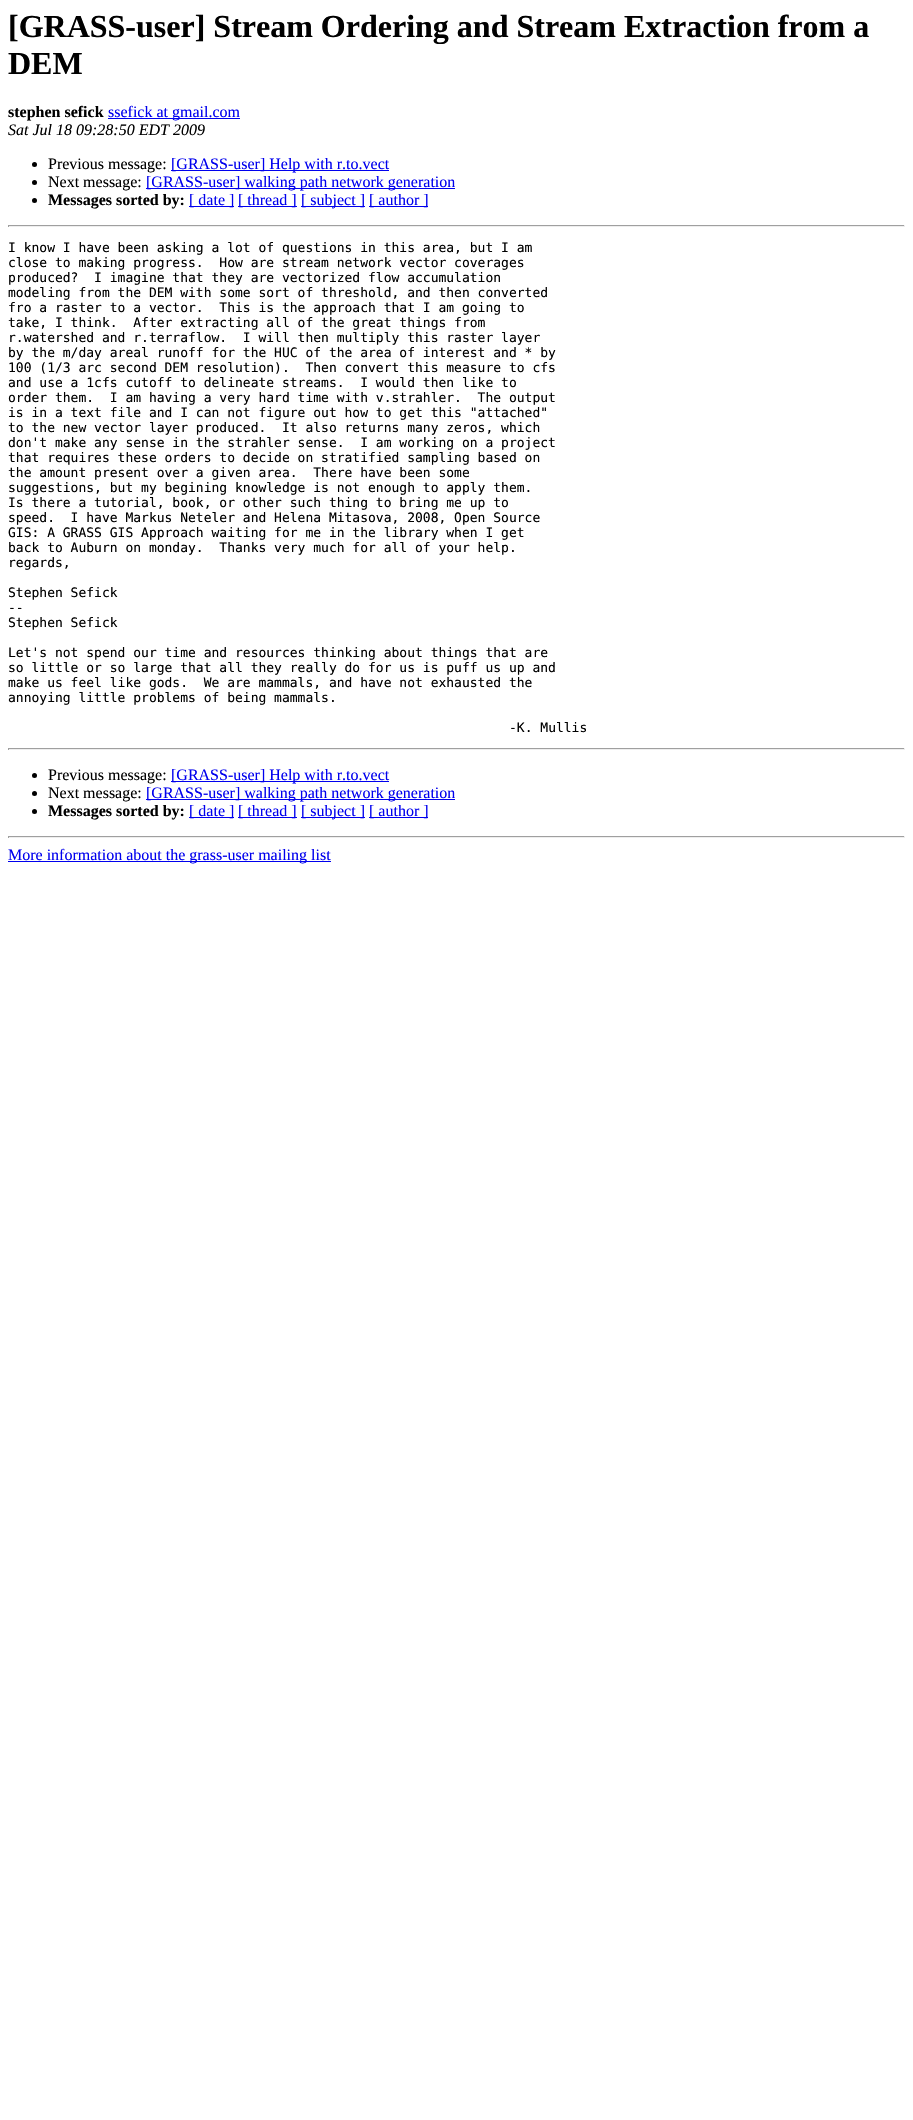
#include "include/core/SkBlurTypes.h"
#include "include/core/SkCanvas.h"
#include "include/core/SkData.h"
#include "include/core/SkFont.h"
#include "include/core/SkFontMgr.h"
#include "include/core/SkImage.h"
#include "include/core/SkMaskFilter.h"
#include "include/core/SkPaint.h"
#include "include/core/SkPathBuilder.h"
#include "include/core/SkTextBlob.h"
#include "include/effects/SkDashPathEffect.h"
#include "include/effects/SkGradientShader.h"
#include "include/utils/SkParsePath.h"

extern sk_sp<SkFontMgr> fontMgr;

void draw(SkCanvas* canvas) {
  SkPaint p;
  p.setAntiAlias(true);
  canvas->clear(SK_ColorWHITE);
  p.setColor(SkColorSetRGB(0, 0, 238));
  canvas->drawRect(SkRect::MakeLTRB(108, 118, 240, 119), p);
  p.setColor(SK_ColorBLACK);
  canvas->drawCircle(34.5f, 164.5f, 2.5f, p);
  p.setColor(SkColorSetRGB(0, 0, 238));
  canvas->drawRect(SkRect::MakeLTRB(171, 170, 389, 171), p);
  p.setColor(SK_ColorBLACK);
  canvas->drawCircle(34.5f, 182.5f, 2.5f, p);
  p.setColor(SkColorSetRGB(0, 0, 238));
  canvas->drawRect(SkRect::MakeLTRB(146, 188, 455, 189), p);
  p.setColor(SK_ColorBLACK);
  canvas->drawCircle(34.5f, 200.5f, 2.5f, p);
  p.setColor(SkColorSetRGB(0, 0, 238));
  canvas->drawRect(SkRect::MakeLTRB(189, 206, 234, 207), p);
  canvas->drawRect(SkRect::MakeLTRB(238, 206, 297, 207), p);
  canvas->drawRect(SkRect::MakeLTRB(301, 206, 365, 207), p);
  canvas->drawRect(SkRect::MakeLTRB(369, 206, 428, 207), p);
  p.setColor(SkColorSetRGB(159, 159, 159));
  canvas->drawRect(SkRect::MakeLTRB(8, 225, 905, 226), p);
  p.setColor(SkColorSetRGB(238, 238, 238));
  canvas->drawRect(SkRect::MakeLTRB(904, 225, 905, 227), p);
  canvas->drawRect(SkRect::MakeLTRB(8, 226, 905, 227), p);
  p.setColor(SkColorSetRGB(159, 159, 159));
  canvas->drawRect(SkRect::MakeLTRB(8, 225, 9, 227), p);
  canvas->drawRect(SkRect::MakeLTRB(8, 748, 905, 749), p);
  p.setColor(SkColorSetRGB(238, 238, 238));
  canvas->drawRect(SkRect::MakeLTRB(904, 748, 905, 750), p);
  canvas->drawRect(SkRect::MakeLTRB(8, 749, 905, 750), p);
  p.setColor(SkColorSetRGB(159, 159, 159));
  canvas->drawRect(SkRect::MakeLTRB(8, 748, 9, 750), p);
  p.setColor(SK_ColorBLACK);
  canvas->drawCircle(34.5f, 775.5f, 2.5f, p);
  p.setColor(SkColorSetRGB(0, 0, 238));
  canvas->drawRect(SkRect::MakeLTRB(171, 781, 389, 782), p);
  p.setColor(SK_ColorBLACK);
  canvas->drawCircle(34.5f, 793.5f, 2.5f, p);
  p.setColor(SkColorSetRGB(0, 0, 238));
  canvas->drawRect(SkRect::MakeLTRB(146, 799, 455, 800), p);
  p.setColor(SK_ColorBLACK);
  canvas->drawCircle(34.5f, 811.5f, 2.5f, p);
  p.setColor(SkColorSetRGB(0, 0, 238));
  canvas->drawRect(SkRect::MakeLTRB(189, 817, 234, 818), p);
  canvas->drawRect(SkRect::MakeLTRB(238, 817, 297, 818), p);
  canvas->drawRect(SkRect::MakeLTRB(301, 817, 365, 818), p);
  canvas->drawRect(SkRect::MakeLTRB(369, 817, 428, 818), p);
  p.setColor(SkColorSetRGB(159, 159, 159));
  canvas->drawRect(SkRect::MakeLTRB(8, 836, 905, 837), p);
  p.setColor(SkColorSetRGB(238, 238, 238));
  canvas->drawRect(SkRect::MakeLTRB(904, 836, 905, 838), p);
  canvas->drawRect(SkRect::MakeLTRB(8, 837, 905, 838), p);
  p.setColor(SkColorSetRGB(159, 159, 159));
  canvas->drawRect(SkRect::MakeLTRB(8, 836, 9, 838), p);
  p.setColor(SkColorSetRGB(0, 0, 238));
  canvas->drawRect(SkRect::MakeLTRB(8, 861, 331, 862), p);
  SkFont font1(fontMgr->matchFamilyStyle("Liberation Serif", SkFontStyle::Bold()), 32);
  font1.setSubpixel(true);
  p.setColor(SK_ColorBLACK);
  canvas->drawString("[GRASS-user] Stream Ordering and Stream Extraction from a", 8, 37, font1, p);
  canvas->drawString("DEM", 8, 74, font1, p);
  SkFont font2(fontMgr->matchFamilyStyle("Liberation Serif", SkFontStyle::Bold()), 16);
  font2.setSubpixel(true);
  canvas->drawString("stephen sefick", 8, 117, font2, p);
  SkFont font3(fontMgr->matchFamilyStyle("Liberation Serif", SkFontStyle::Normal()), 16);
  font3.setSubpixel(true);
  p.setColor(SkColorSetRGB(0, 0, 238));
  canvas->drawString("ssefick at gmail.com", 108, 117, font3, p);
  SkFont font4(fontMgr->matchFamilyStyle("Liberation Serif", SkFontStyle::Italic()), 16);
  font4.setSubpixel(true);
  p.setColor(SK_ColorBLACK);
  canvas->drawString("Sat Jul 18 09:28:50 EDT 2009", 8, 135, font4, p);
  canvas->drawString("Previous message:", 48, 169, font3, p);
  p.setColor(SkColorSetRGB(0, 0, 238));
  canvas->drawString("[GRASS-user] Help with r.to.vect", 171, 169, font3, p);
  p.setColor(SK_ColorBLACK);
  canvas->drawString("Next message:", 48, 187, font3, p);
  p.setColor(SkColorSetRGB(0, 0, 238));
  canvas->drawString("[GRASS-user] walking path network generation", 146, 187, font3, p);
  p.setColor(SK_ColorBLACK);
  canvas->drawString("Messages sorted by:", 48, 205, font2, p);
  p.setColor(SkColorSetRGB(0, 0, 238));
  canvas->drawString("[ date ]", 189, 205, font3, p);
  canvas->drawString("[ thread ]", 238, 205, font3, p);
  canvas->drawString("[ subject ]", 301, 205, font3, p);
  canvas->drawString("[ author ]", 369, 205, font3, p);
  SkFont font5(fontMgr->matchFamilyStyle("DejaVu Sans Mono", SkFontStyle::Normal()), 13);
  font5.setSubpixel(true);
  p.setColor(SK_ColorBLACK);
  canvas->drawString("I know I have been asking a lot of questions in this area, but I am", 8, 252, font5, p);
  canvas->drawString("close to making progress.  How are stream network vector coverages", 8, 267, font5, p);
  canvas->drawString("produced?  I imagine that they are vectorized flow accumulation", 8, 282, font5, p);
  canvas->drawString("modeling from the DEM with some sort of threshold, and then converted", 8, 297, font5, p);
  canvas->drawString("fro a raster to a vector.  This is the approach that I am going to", 8, 312, font5, p);
  canvas->drawString("take, I think.  After extracting all of the great things from", 8, 327, font5, p);
  canvas->drawString("r.watershed and r.terraflow.  I will then multiply this raster layer", 8, 342, font5, p);
  canvas->drawString("by the m/day areal runoff for the HUC of the area of interest and * by", 8, 357, font5, p);
  canvas->drawString("100 (1/3 arc second DEM resolution).  Then convert this measure to cfs", 8, 372, font5, p);
  canvas->drawString("and use a 1cfs cutoff to delineate streams.  I would then like to", 8, 387, font5, p);
  canvas->drawString("order them.  I am having a very hard time with v.strahler.  The output", 8, 402, font5, p);
  canvas->drawString("is in a text file and I can not figure out how to get this \"attached\"", 8, 417, font5, p);
  canvas->drawString("to the new vector layer produced.  It also returns many zeros, which", 8, 432, font5, p);
  canvas->drawString("don't make any sense in the strahler sense.  I am working on a project", 8, 447, font5, p);
  canvas->drawString("that requires these orders to decide on stratified sampling based on", 8, 462, font5, p);
  canvas->drawString("the amount present over a given area.  There have been some", 8, 477, font5, p);
  canvas->drawString("suggestions, but my begining knowledge is not enough to apply them.", 8, 492, font5, p);
  canvas->drawString("Is there a tutorial, book, or other such thing to bring me up to", 8, 507, font5, p);
  canvas->drawString("speed.  I have Markus Neteler and Helena Mitasova, 2008, Open Source", 8, 522, font5, p);
  canvas->drawString("GIS: A GRASS GIS Approach waiting for me in the library when I get", 8, 537, font5, p);
  canvas->drawString("back to Auburn on monday.  Thanks very much for all of your help.", 8, 552, font5, p);
  canvas->drawString("regards,", 8, 567, font5, p);
  canvas->drawString("Stephen Sefick", 8, 597, font5, p);
  canvas->drawString("--", 8, 612, font5, p);
  canvas->drawString("Stephen Sefick", 8, 627, font5, p);
  canvas->drawString("Let's not spend our time and resources thinking about things that are", 8, 657, font5, p);
  canvas->drawString("so little or so large that all they really do for us is puff us up and", 8, 672, font5, p);
  canvas->drawString("make us feel like gods.  We are mammals, and have not exhausted the", 8, 687, font5, p);
  canvas->drawString("annoying little problems of being mammals.", 8, 702, font5, p);
  canvas->drawString("-K. Mullis", 509, 732, font5, p);
  canvas->drawString("Previous message:", 48, 780, font3, p);
  p.setColor(SkColorSetRGB(0, 0, 238));
  canvas->drawString("[GRASS-user] Help with r.to.vect", 171, 780, font3, p);
  p.setColor(SK_ColorBLACK);
  canvas->drawString("Next message:", 48, 798, font3, p);
  p.setColor(SkColorSetRGB(0, 0, 238));
  canvas->drawString("[GRASS-user] walking path network generation", 146, 798, font3, p);
  p.setColor(SK_ColorBLACK);
  canvas->drawString("Messages sorted by:", 48, 816, font2, p);
  p.setColor(SkColorSetRGB(0, 0, 238));
  canvas->drawString("[ date ]", 189, 816, font3, p);
  canvas->drawString("[ thread ]", 238, 816, font3, p);
  canvas->drawString("[ subject ]", 301, 816, font3, p);
  canvas->drawString("[ author ]", 369, 816, font3, p);
  canvas->drawString("More information about the grass-user mailing list", 8, 860, font3, p);
}
